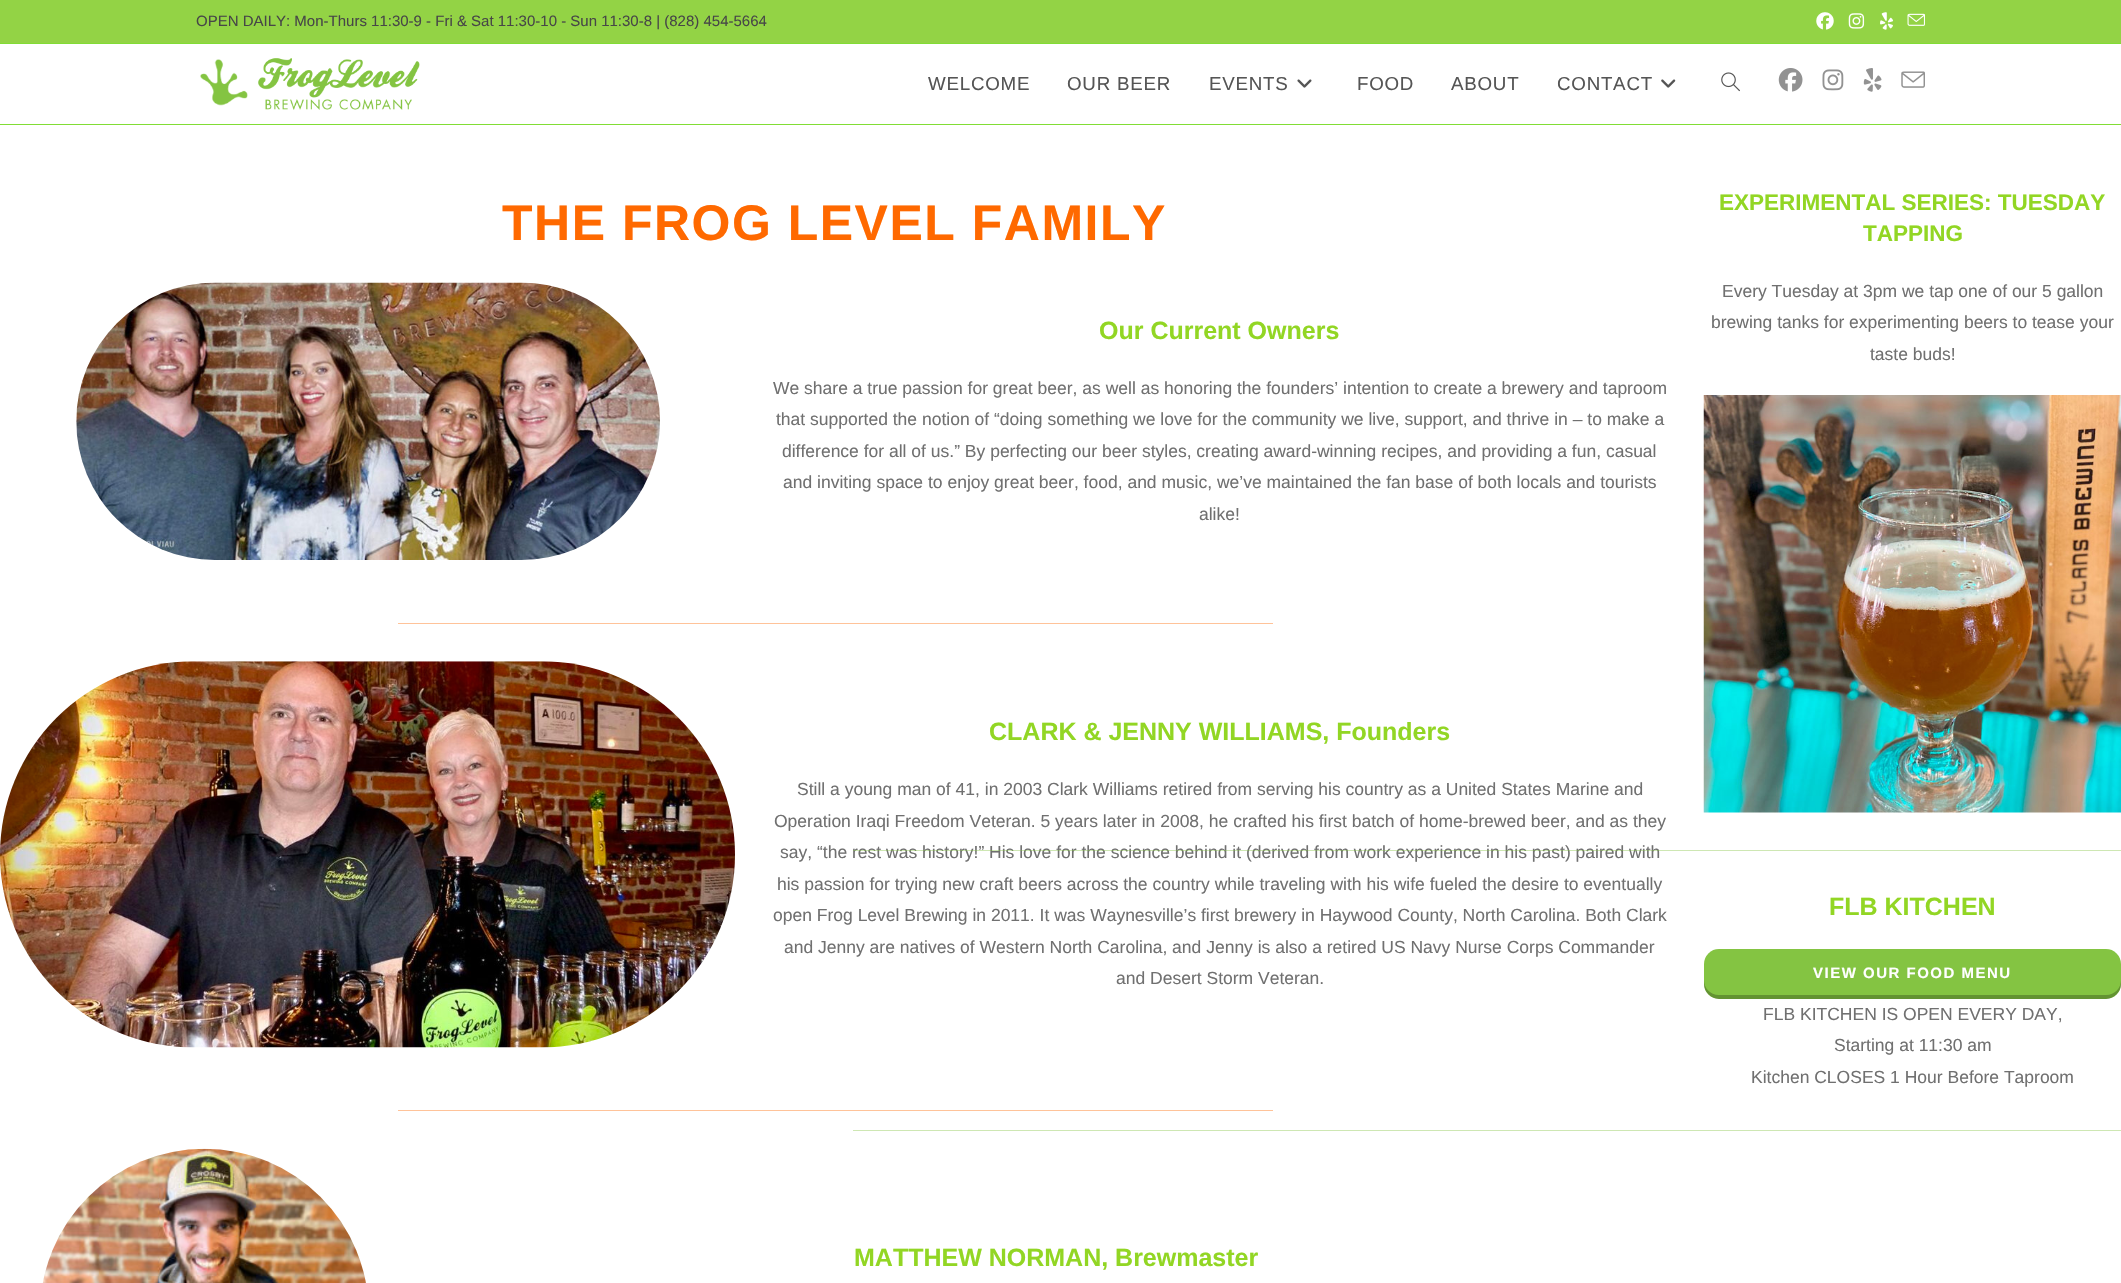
#include "include/core/SkBlurTypes.h"
#include "include/core/SkCanvas.h"
#include "include/core/SkData.h"
#include "include/core/SkFont.h"
#include "include/core/SkFontMgr.h"
#include "include/core/SkImage.h"
#include "include/core/SkMaskFilter.h"
#include "include/core/SkPaint.h"
#include "include/core/SkPathBuilder.h"
#include "include/core/SkTextBlob.h"
#include "include/effects/SkDashPathEffect.h"
#include "include/effects/SkGradientShader.h"
#include "include/utils/SkParsePath.h"

extern sk_sp<SkFontMgr> fontMgr;

void draw(SkCanvas* canvas) {
  SkPaint p;
  p.setAntiAlias(true);
  auto spacedText = [&](const char* s, float x, float y, const SkFont& font, const SkPaint& ink, float letter, float word) {
    std::vector<SkGlyphID> glyphs(font.countText(s, strlen(s), SkTextEncoding::kUTF8));
    std::vector<float> xs(glyphs.size());
    font.textToGlyphs(s, strlen(s), SkTextEncoding::kUTF8, glyphs);
    font.getXPos(glyphs, xs, x);
    float extra = 0;
    for (size_t i = 0; i < glyphs.size(); i++) {
      xs[i] += extra;
      extra += letter + word * (glyphs[i] == font.unicharToGlyph(' '));
    }
    canvas->drawTextBlob(SkTextBlob::MakeFromPosHGlyphs(glyphs, xs, y, font), 0, 0, ink);
  };
  canvas->clear(SK_ColorWHITE);
  p.setColor(SkColorSetRGB(147, 211, 69));
  canvas->drawRect(SkRect::MakeLTRB(0, 0, 2121, 43), p);
  p.setColor(SkColorSetRGB(129, 221, 53));
  canvas->drawRect(SkRect::MakeLTRB(0, 43, 2121, 44), p);
  canvas->drawImageRect(SkImages::DeferredFromEncodedData(SkData::MakeFromFileName("images/1.png")), SkRect::MakeLTRB(1816, 12, 1834, 30), SkSamplingOptions());
  canvas->drawImageRect(SkImages::DeferredFromEncodedData(SkData::MakeFromFileName("images/2.png")), SkRect::MakeLTRB(1848, 13, 1865, 29), SkSamplingOptions());
  canvas->drawImageRect(SkImages::DeferredFromEncodedData(SkData::MakeFromFileName("images/3.png")), SkRect::MakeLTRB(1880, 12, 1894, 30), SkSamplingOptions());
  canvas->drawImageRect(SkImages::DeferredFromEncodedData(SkData::MakeFromFileName("images/4.png")), SkRect::MakeLTRB(1907, 13, 1925, 26), SkSamplingOptions());
  canvas->drawRect(SkRect::MakeLTRB(0, 124, 2121, 125), p);
  canvas->drawImageRect(SkImages::DeferredFromEncodedData(SkData::MakeFromFileName("images/5.png")), SkRect::MakeLTRB(200, 58, 420, 110), SkSamplingOptions());
  canvas->drawImageRect(SkImages::DeferredFromEncodedData(SkData::MakeFromFileName("images/6.png")), SkRect::MakeLTRB(1297, 79, 1312, 88), SkSamplingOptions());
  canvas->drawImageRect(SkImages::DeferredFromEncodedData(SkData::MakeFromFileName("images/7.png")), SkRect::MakeLTRB(1661, 79, 1676, 88), SkSamplingOptions());
  canvas->drawImageRect(SkImages::DeferredFromEncodedData(SkData::MakeFromFileName("images/8.png")), SkRect::MakeLTRB(1721, 72, 1740, 92), SkSamplingOptions());
  canvas->drawImageRect(SkImages::DeferredFromEncodedData(SkData::MakeFromFileName("images/9.png")), SkRect::MakeLTRB(1778, 68, 1803, 92), SkSamplingOptions());
  canvas->drawImageRect(SkImages::DeferredFromEncodedData(SkData::MakeFromFileName("images/10.png")), SkRect::MakeLTRB(1822, 69, 1844, 91), SkSamplingOptions());
  canvas->drawImageRect(SkImages::DeferredFromEncodedData(SkData::MakeFromFileName("images/11.png")), SkRect::MakeLTRB(1863, 68, 1882, 92), SkSamplingOptions());
  canvas->drawImageRect(SkImages::DeferredFromEncodedData(SkData::MakeFromFileName("images/12.png")), SkRect::MakeLTRB(1901, 71, 1925, 88), SkSamplingOptions());
  canvas->drawImageRect(SkImages::DeferredFromEncodedData(SkData::MakeFromFileName("images/13.png")), SkRect::MakeLTRB(76, 282, 660, 560), SkSamplingOptions());
  p.setColor(SkColorSetRGB(255, 195, 153));
  canvas->drawRect(SkRect::MakeLTRB(398, 623, 1273, 624), p);
  canvas->drawImageRect(SkImages::DeferredFromEncodedData(SkData::MakeFromFileName("images/14.png")), SkRect::MakeLTRB(0, 661, 735, 1048), SkSamplingOptions());
  canvas->drawRect(SkRect::MakeLTRB(398, 1110, 1273, 1111), p);
  canvas->drawImageRect(SkImages::DeferredFromEncodedData(SkData::MakeFromFileName("images/15.png")), SkRect::MakeLTRB(42, 1148, 366, 1283), SkSamplingOptions());
  canvas->drawImageRect(SkImages::DeferredFromEncodedData(SkData::MakeFromFileName("images/16.png")), SkRect::MakeLTRB(1703, 395, 2121, 813), SkSamplingOptions());
  p.setColor(SkColorSetRGB(132, 196, 66));
  canvas->drawRoundRect(SkRect::MakeLTRB(1704, 949, 2121, 999), 15, 15, p);
  p.setColor(SkColorSetARGB(64, 0, 0, 0));
  canvas->drawPath(SkPathBuilder().moveTo(1704, 980).lineTo(1704, 984).cubicTo(1704, 992, 1711, 999, 1719, 999).lineTo(2106, 999).cubicTo(2114, 999, 2121, 992, 2121, 984).lineTo(2121, 980).cubicTo(2121, 988, 2115, 995, 2106, 995).lineTo(1719, 995).cubicTo(1710, 995, 1704, 988, 1704, 980).close().detach(), p);
  p.setColor(SkColorSetRGB(206, 231, 179));
  canvas->drawRect(SkRect::MakeLTRB(853, 1130, 2121, 1131), p);
  SkFont font1(fontMgr->matchFamilyStyle("Liberation Sans", SkFontStyle::Normal()), 15);
  font1.setSubpixel(true);
  p.setColor(SkColorSetRGB(71, 71, 71));
  canvas->drawString("OPEN DAILY: Mon-Thurs 11:30-9 - Fri & Sat 11:30-10 - Sun 11:30-8 | (828) 454-5664", 196, 26, font1, p);
  SkFont font2(fontMgr->matchFamilyStyle("Liberation Sans", SkFontStyle::Normal()), 18.75f);
  font2.setSubpixel(true);
  p.setColor(SkColorSetRGB(85, 85, 85));
  spacedText("WELCOME", 928, 90, font2, p, 0.75f, 0);
  spacedText("OUR BEER", 1067, 90, font2, p, 0.75f, 0);
  spacedText("EVENTS", 1209, 90, font2, p, 0.75f, 0);
  spacedText("FOOD", 1357, 90, font2, p, 0.75f, 0);
  spacedText("ABOUT", 1451, 90, font2, p, 0.75f, 0);
  spacedText("CONTACT", 1557, 90, font2, p, 0.75f, 0);
  SkFont font3(fontMgr->matchFamilyStyle("Liberation Sans", SkFontStyle::Bold()), 50);
  font3.setSubpixel(true);
  p.setColor(SkColorSetRGB(255, 105, 0));
  spacedText("THE FROG LEVEL FAMILY", 502, 240, font3, p, 1.5f, 0);
  SkFont font4(fontMgr->matchFamilyStyle("Liberation Sans", SkFontStyle::Bold()), 25);
  font4.setSubpixel(true);
  p.setColor(SkColorSetRGB(146, 214, 36));
  canvas->drawString("Our Current Owners", 1099, 339, font4, p);
  SkFont font5(fontMgr->matchFamilyStyle("Liberation Sans", SkFontStyle::Normal()), 17.5f);
  font5.setSubpixel(true);
  p.setColor(SkColorSetRGB(112, 112, 112));
  canvas->drawString("We share a true passion for great beer, as well as honoring the founders’ intention to create a brewery and taproom", 773, 394, font5, p);
  canvas->drawString("that supported the notion of “doing something we love for the community we live, support, and thrive in – to make a", 776, 425, font5, p);
  canvas->drawString("difference for all of us.” By perfecting our beer styles, creating award-winning recipes, and providing a fun, casual", 782, 457, font5, p);
  canvas->drawString("and inviting space to enjoy great beer, food, and music, we’ve maintained the fan base of both locals and tourists", 783, 488, font5, p);
  canvas->drawString("alike!", 1199, 520, font5, p);
  p.setColor(SkColorSetRGB(146, 214, 36));
  canvas->drawString("CLARK & JENNY WILLIAMS, Founders", 989, 740, font4, p);
  p.setColor(SkColorSetRGB(112, 112, 112));
  canvas->drawString("Still a young man of 41, in 2003 Clark Williams retired from serving his country as a United States Marine and", 797, 795, font5, p);
  canvas->drawString("Operation Iraqi Freedom Veteran. 5 years later in 2008, he crafted his first batch of home-brewed beer, and as they", 774, 827, font5, p);
  canvas->drawString("say, “the rest was history!” His love for the science behind it (derived from work experience in his past) paired with", 780, 858, font5, p);
  canvas->drawString("his passion for trying new craft beers across the country while traveling with his wife fueled the desire to eventually", 777, 890, font5, p);
  canvas->drawString("open Frog Level Brewing in 2011. It was Waynesville’s first brewery in Haywood County, North Carolina. Both Clark", 773, 921, font5, p);
  canvas->drawString("and Jenny are natives of Western North Carolina, and Jenny is also a retired US Navy Nurse Corps Commander", 784, 953, font5, p);
  canvas->drawString("and Desert Storm Veteran.", 1116, 984, font5, p);
  p.setColor(SkColorSetRGB(146, 214, 36));
  canvas->drawString("MATTHEW NORMAN, Brewmaster", 854, 1266, font4, p);
  SkFont font6(fontMgr->matchFamilyStyle("Liberation Sans", SkFontStyle::Bold()), 22.5f);
  font6.setSubpixel(true);
  canvas->drawString("EXPERIMENTAL SERIES: TUESDAY", 1719, 210, font6, p);
  canvas->drawString("TAPPING", 1863, 241, font6, p);
  p.setColor(SkColorSetRGB(112, 112, 112));
  canvas->drawString("Every Tuesday at 3pm we tap one of our 5 gallon", 1722, 297, font5, p);
  canvas->drawString("brewing tanks for experimenting beers to tease your", 1711, 328, font5, p);
  canvas->drawString("taste buds!", 1870, 360, font5, p);
  p.setColor(SkColorSetARGB(102, 132, 196, 66));
  canvas->drawRect(SkRect::MakeLTRB(853, 850, 2121, 851), p);
  p.setColor(SkColorSetRGB(146, 214, 36));
  canvas->drawString("FLB KITCHEN", 1829, 915, font4, p);
  SkFont font7(fontMgr->matchFamilyStyle("Liberation Sans", SkFontStyle::Bold()), 15);
  font7.setSubpixel(true);
  p.setColor(SK_ColorWHITE);
  spacedText("VIEW OUR FOOD MENU", 1813, 978, font7, p, 1.5f, 0);
  p.setColor(SkColorSetRGB(112, 112, 112));
  canvas->drawString("FLB KITCHEN IS OPEN EVERY DAY,", 1763, 1020, font5, p);
  canvas->drawString("Starting at 11:30 am", 1834, 1051, font5, p);
  canvas->drawString("Kitchen CLOSES 1 Hour Before Taproom", 1751, 1083, font5, p);
}
